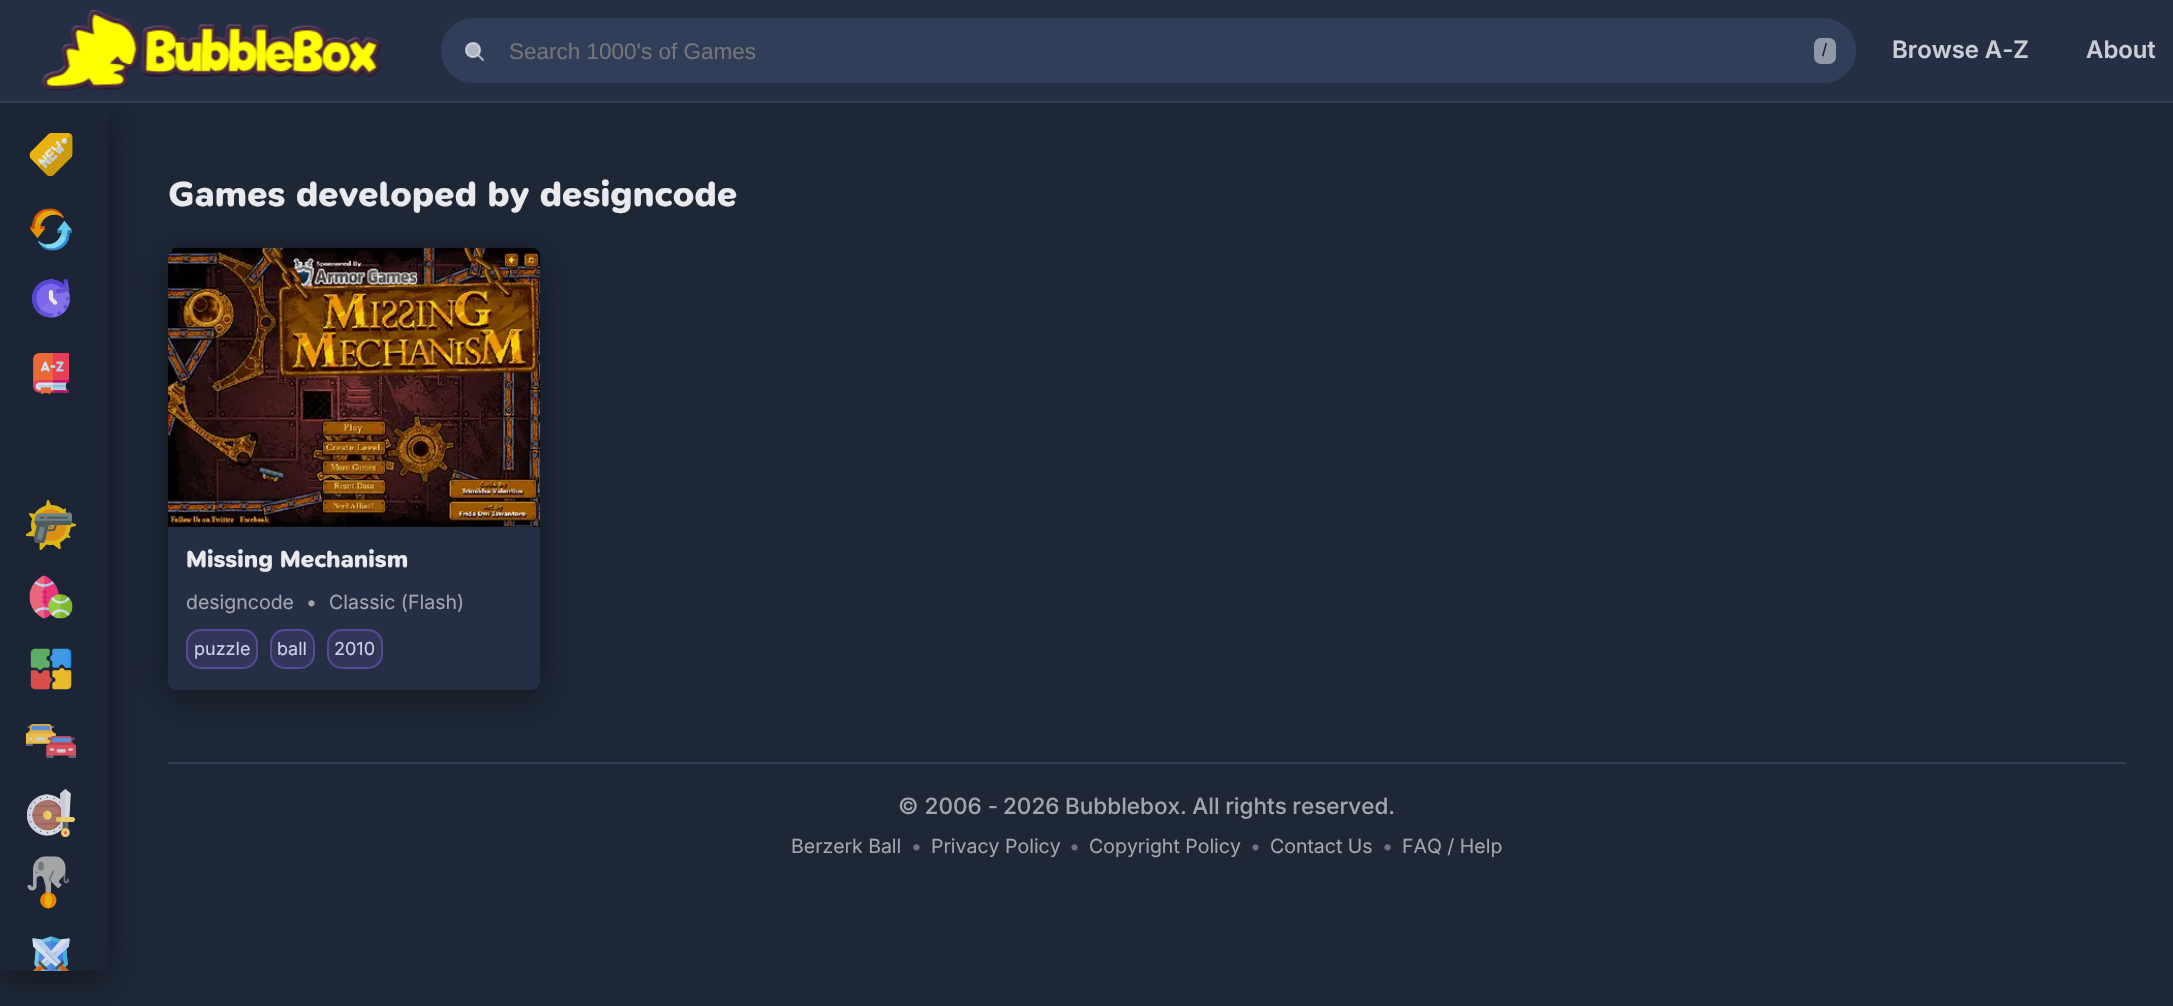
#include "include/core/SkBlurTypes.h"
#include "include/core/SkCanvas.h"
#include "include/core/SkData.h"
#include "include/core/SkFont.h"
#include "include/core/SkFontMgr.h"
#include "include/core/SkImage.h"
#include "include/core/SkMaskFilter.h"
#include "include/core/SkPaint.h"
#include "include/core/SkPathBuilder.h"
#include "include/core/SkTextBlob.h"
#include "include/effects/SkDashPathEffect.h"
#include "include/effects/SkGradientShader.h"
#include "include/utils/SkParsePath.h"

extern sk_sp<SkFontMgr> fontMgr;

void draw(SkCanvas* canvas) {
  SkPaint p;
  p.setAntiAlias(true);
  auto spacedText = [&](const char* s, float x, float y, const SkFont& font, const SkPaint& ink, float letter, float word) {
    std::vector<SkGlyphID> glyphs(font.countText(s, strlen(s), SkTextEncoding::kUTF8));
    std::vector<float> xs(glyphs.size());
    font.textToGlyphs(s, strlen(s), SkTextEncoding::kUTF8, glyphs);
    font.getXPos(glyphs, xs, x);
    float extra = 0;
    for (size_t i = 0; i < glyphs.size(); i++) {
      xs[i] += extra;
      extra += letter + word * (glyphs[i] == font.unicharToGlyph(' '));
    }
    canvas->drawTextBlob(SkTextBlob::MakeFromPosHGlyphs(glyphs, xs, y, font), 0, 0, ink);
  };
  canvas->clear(SkColorSetRGB(29, 39, 54));
  p.setColor(SkColorSetARGB(102, 0, 0, 0));
  p.setMaskFilter(SkMaskFilter::MakeBlur(kNormal_SkBlurStyle, 18));
  canvas->drawRoundRect(SkRect::MakeLTRB(0, 111, 108, 980), 6, 6, p);
  p.setMaskFilter(nullptr);
  p.setColor(SkColorSetRGB(36, 47, 68));
  canvas->drawRect(SkRect::MakeLTRB(0, 0, 2173, 101), p);
  p.setColor(SkColorSetRGB(28, 37, 53));
  canvas->drawRoundRect(SkRect::MakeLTRB(0, 102, 108, 971), 6, 6, p);
  p.setColor(SkColorSetRGB(48, 62, 90));
  canvas->drawRect(SkRect::MakeLTRB(0, 101, 2173, 103), p);
  canvas->drawImageRect(SkImages::DeferredFromEncodedData(SkData::MakeFromFileName("images/1.png")), SkRect::MakeLTRB(42, 10, 381, 91), SkSamplingOptions());
  canvas->drawRoundRect(SkRect::MakeLTRB(442, 19, 1855, 82), 31.5f, 31.5f, p);
  p.setStyle(SkPaint::kStroke_Style);
  p.setStrokeWidth(2);
  canvas->drawRoundRect(SkRect::MakeLTRB(442, 19, 1855, 82), 31.5f, 31.5f, p);
  canvas->drawImageRect(SkImages::DeferredFromEncodedData(SkData::MakeFromFileName("images/2.png")), SkRect::MakeLTRB(465, 42, 484, 61), SkSamplingOptions());
  p.setStyle(SkPaint::kFill_Style);
  p.setColor(SkColorSetRGB(144, 151, 165));
  canvas->drawRoundRect(SkRect::MakeLTRB(1813, 37, 1837, 65), 8, 8, p);
  p.setStyle(SkPaint::kStroke_Style);
  p.setColor(SkColorSetRGB(48, 62, 90));
  canvas->drawRoundRect(SkRect::MakeLTRB(1813, 37, 1837, 65), 8, 8, p);
  canvas->drawImageRect(SkImages::DeferredFromEncodedData(SkData::MakeFromFileName("images/3.png")), SkRect::MakeLTRB(29, 133, 73, 176), SkSamplingOptions());
  canvas->drawImageRect(SkImages::DeferredFromEncodedData(SkData::MakeFromFileName("images/4.png")), SkRect::MakeLTRB(30, 208, 72, 251), SkSamplingOptions());
  canvas->drawImageRect(SkImages::DeferredFromEncodedData(SkData::MakeFromFileName("images/5.png")), SkRect::MakeLTRB(32, 279, 70, 318), SkSamplingOptions());
  canvas->drawImageRect(SkImages::DeferredFromEncodedData(SkData::MakeFromFileName("images/6.png")), SkRect::MakeLTRB(33, 353, 69, 394), SkSamplingOptions());
  canvas->drawImageRect(SkImages::DeferredFromEncodedData(SkData::MakeFromFileName("images/7.png")), SkRect::MakeLTRB(26, 500, 76, 550), SkSamplingOptions());
  canvas->drawImageRect(SkImages::DeferredFromEncodedData(SkData::MakeFromFileName("images/8.png")), SkRect::MakeLTRB(29, 575, 73, 619), SkSamplingOptions());
  canvas->drawImageRect(SkImages::DeferredFromEncodedData(SkData::MakeFromFileName("images/9.png")), SkRect::MakeLTRB(30, 648, 72, 690), SkSamplingOptions());
  canvas->drawImageRect(SkImages::DeferredFromEncodedData(SkData::MakeFromFileName("images/10.png")), SkRect::MakeLTRB(25, 724, 77, 758), SkSamplingOptions());
  canvas->drawImageRect(SkImages::DeferredFromEncodedData(SkData::MakeFromFileName("images/11.png")), SkRect::MakeLTRB(27, 789, 75, 837), SkSamplingOptions());
  canvas->drawImageRect(SkImages::DeferredFromEncodedData(SkData::MakeFromFileName("images/12.png")), SkRect::MakeLTRB(27, 856, 69, 909), SkSamplingOptions());
  canvas->drawImageRect(SkImages::DeferredFromEncodedData(SkData::MakeFromFileName("images/13.png")), SkRect::MakeLTRB(32, 936, 70, 971), SkSamplingOptions());
  p.setStyle(SkPaint::kFill_Style);
  p.setColor(SkColorSetARGB(102, 0, 0, 0));
  p.setMaskFilter(SkMaskFilter::MakeBlur(kNormal_SkBlurStyle, 18));
  canvas->drawRoundRect(SkRect::MakeLTRB(168, 257, 540, 699), 9, 9, p);
  p.setMaskFilter(nullptr);
  p.setColor(SkColorSetRGB(36, 47, 68));
  canvas->drawRoundRect(SkRect::MakeLTRB(168, 248, 540, 690), 9, 9, p);
  p.setColor(SkColorSetRGB(11, 11, 12));
  canvas->drawPath(SkPathBuilder().moveTo(177, 248).lineTo(531, 248).cubicTo(536, 248, 540, 252, 540, 257).lineTo(540, 527).lineTo(168, 527).lineTo(168, 257).cubicTo(168, 252, 172, 248, 177, 248).close().detach(), p);
  canvas->drawImageRect(SkImages::DeferredFromEncodedData(SkData::MakeFromFileName("images/14.png")), SkRect::MakeLTRB(168, 247, 540, 527), SkSamplingOptions());
  p.setColor(SkColorSetRGB(50, 54, 90));
  canvas->drawRoundRect(SkRect::MakeLTRB(186, 629, 258, 669), 15, 15, p);
  p.setStyle(SkPaint::kStroke_Style);
  p.setColor(SkColorSetARGB(89, 155, 107, 255));
  canvas->drawRoundRect(SkRect::MakeLTRB(187, 630, 257, 668), 14, 14, p);
  p.setStyle(SkPaint::kFill_Style);
  p.setColor(SkColorSetRGB(50, 54, 90));
  canvas->drawRoundRect(SkRect::MakeLTRB(270, 629, 315, 669), 15, 15, p);
  p.setStyle(SkPaint::kStroke_Style);
  p.setColor(SkColorSetARGB(89, 155, 107, 255));
  canvas->drawRoundRect(SkRect::MakeLTRB(271, 630, 314, 668), 14, 14, p);
  p.setStyle(SkPaint::kFill_Style);
  p.setColor(SkColorSetRGB(50, 54, 90));
  canvas->drawRoundRect(SkRect::MakeLTRB(327, 629, 383, 669), 15, 15, p);
  p.setStyle(SkPaint::kStroke_Style);
  p.setColor(SkColorSetARGB(89, 155, 107, 255));
  canvas->drawRoundRect(SkRect::MakeLTRB(328, 630, 382, 668), 14, 14, p);
  p.setStyle(SkPaint::kFill_Style);
  p.setColor(SkColorSetRGB(48, 62, 90));
  canvas->drawRect(SkRect::MakeLTRB(168, 762, 2126, 764), p);
  SkFont font1(fontMgr->matchFamilyStyle("Liberation Sans", SkFontStyle::Normal()), 22.5f);
  font1.setSubpixel(true);
  p.setColor(SkColorSetRGB(117, 117, 117));
  canvas->drawString("Search 1000's of Games", 509, 59, font1, p);
  SkFont font2(fontMgr->matchFamilyStyle("Liberation Sans", SkFontStyle::Normal()), 18);
  font2.setSubpixel(true);
  p.setColor(SkColorSetRGB(24, 31, 45));
  canvas->drawString("/", 1822, 56, font2, p);
  SkFont font3(fontMgr->matchFamilyStyle("Inter", SkFontStyle(600, SkFontStyle::kNormal_Width, SkFontStyle::kUpright_Slant)), 24);
  font3.setSubpixel(true);
  p.setColor(SkColorSetRGB(203, 205, 213));
  canvas->drawString("Browse A-Z", 1892, 58, font3, p);
  canvas->drawString("About", 2086, 58, font3, p);
  SkFont font4(fontMgr->matchFamilyStyle("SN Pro", SkFontStyle(900, SkFontStyle::kNormal_Width, SkFontStyle::kUpright_Slant)), 36);
  font4.setSubpixel(true);
  p.setColor(SkColorSetRGB(233, 233, 238));
  spacedText("Games developed by designcode", 168, 206, font4, p, 0.15f, 0);
  SkFont font5(fontMgr->matchFamilyStyle("SN Pro", SkFontStyle(900, SkFontStyle::kNormal_Width, SkFontStyle::kUpright_Slant)), 24);
  font5.setSubpixel(true);
  canvas->drawString("Missing Mechanism", 186, 567, font5, p);
  SkFont font6(fontMgr->matchFamilyStyle("Inter", SkFontStyle::Normal()), 19.5f);
  font6.setSubpixel(true);
  p.setColor(SkColorSetRGB(164, 164, 173));
  canvas->drawString("designcode", 186, 609, font6, p);
  canvas->drawString("•", 306, 609, font6, p);
  canvas->drawString("Classic (Flash)", 329, 609, font6, p);
  SkFont font7(fontMgr->matchFamilyStyle("Inter", SkFontStyle::Normal()), 18);
  font7.setSubpixel(true);
  p.setColor(SkColorSetRGB(207, 207, 232));
  canvas->drawString("puzzle", 194, 655, font7, p);
  canvas->drawString("ball", 277, 655, font7, p);
  canvas->drawString("2010", 334, 655, font7, p);
  SkFont font8(fontMgr->matchFamilyStyle("Inter", SkFontStyle(500, SkFontStyle::kNormal_Width, SkFontStyle::kUpright_Slant)), 22.5f);
  font8.setSubpixel(true);
  p.setColor(SkColorSetRGB(164, 164, 173));
  canvas->drawString("© 2006 -", 898, 814, font8, p);
  canvas->drawString("2026", 1003, 814, font8, p);
  spacedText("Bubblebox. All rights reserved.", 1065, 814, font8, p, 0, -0.5f);
  canvas->drawString("Berzerk Ball", 791, 853, font6, p);
  p.setColor(SkColorSetRGB(110, 114, 125));
  canvas->drawString("•", 911, 853, font6, p);
  p.setColor(SkColorSetRGB(164, 164, 173));
  canvas->drawString("Privacy Policy", 931, 853, font6, p);
  p.setColor(SkColorSetRGB(110, 114, 125));
  canvas->drawString("•", 1069, 853, font6, p);
  p.setColor(SkColorSetRGB(164, 164, 173));
  canvas->drawString("Copyright Policy", 1089, 853, font6, p);
  p.setColor(SkColorSetRGB(110, 114, 125));
  canvas->drawString("•", 1250, 853, font6, p);
  p.setColor(SkColorSetRGB(164, 164, 173));
  canvas->drawString("Contact Us", 1270, 853, font6, p);
  p.setColor(SkColorSetRGB(110, 114, 125));
  canvas->drawString("•", 1382, 853, font6, p);
  p.setColor(SkColorSetRGB(164, 164, 173));
  canvas->drawString("FAQ / Help", 1402, 853, font6, p);
}
